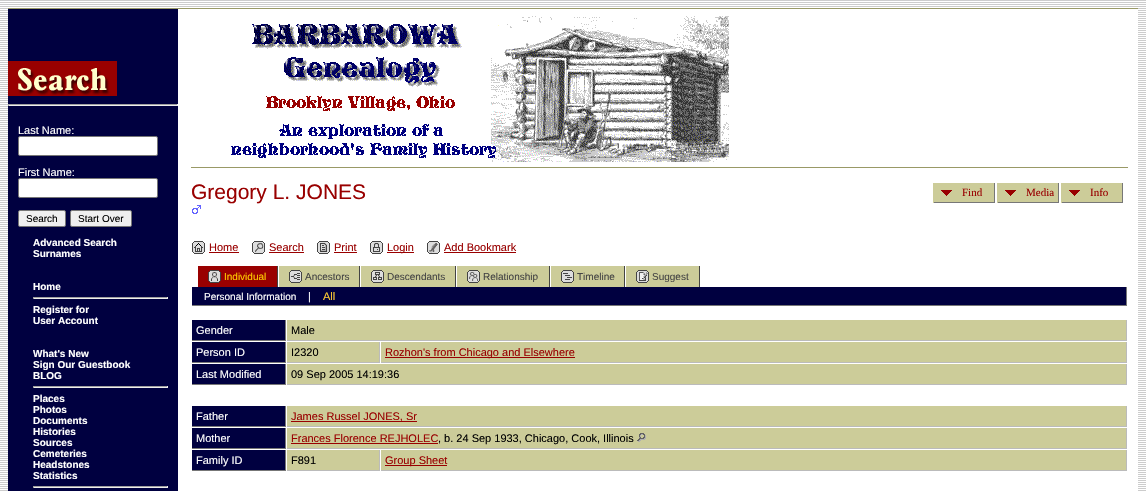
#include "include/core/SkBlurTypes.h"
#include "include/core/SkCanvas.h"
#include "include/core/SkData.h"
#include "include/core/SkFont.h"
#include "include/core/SkFontMgr.h"
#include "include/core/SkImage.h"
#include "include/core/SkMaskFilter.h"
#include "include/core/SkPaint.h"
#include "include/core/SkPathBuilder.h"
#include "include/core/SkTextBlob.h"
#include "include/effects/SkDashPathEffect.h"
#include "include/effects/SkGradientShader.h"
#include "include/utils/SkParsePath.h"

extern sk_sp<SkFontMgr> fontMgr;

void draw(SkCanvas* canvas) {
  SkPaint p;
  p.setAntiAlias(true);
  canvas->clear(SK_ColorWHITE);
  canvas->drawImageRect(SkImages::DeferredFromEncodedData(SkData::MakeFromFileName("images/1.png")), SkRect::MakeLTRB(0, 0, 1146, 491), SkSamplingOptions());
  p.setColor(SK_ColorWHITE);
  canvas->drawRect(SkRect::MakeLTRB(178, 10, 1138, 491), p);
  p.setColor(SkColorSetRGB(153, 153, 102));
  canvas->drawRect(SkRect::MakeLTRB(8, 8, 1138, 9), p);
  p.setColor(SkColorSetRGB(0, 0, 64));
  canvas->drawRect(SkRect::MakeLTRB(8, 9, 178, 491), p);
  canvas->drawImageRect(SkImages::DeferredFromEncodedData(SkData::MakeFromFileName("images/2.png")), SkRect::MakeLTRB(8, 61, 117, 96), SkSamplingOptions());
  p.setColor(SkColorSetRGB(159, 159, 159));
  canvas->drawRect(SkRect::MakeLTRB(8, 104, 178, 105), p);
  p.setColor(SkColorSetRGB(238, 238, 238));
  canvas->drawRect(SkRect::MakeLTRB(177, 104, 178, 106), p);
  canvas->drawRect(SkRect::MakeLTRB(8, 105, 178, 106), p);
  p.setColor(SkColorSetRGB(159, 159, 159));
  canvas->drawRect(SkRect::MakeLTRB(8, 104, 9, 106), p);
  p.setColor(SK_ColorWHITE);
  canvas->drawRoundRect(SkRect::MakeLTRB(18.5f, 136.5f, 157.5f, 155.5f), 1.5f, 1.5f, p);
  p.setStyle(SkPaint::kStroke_Style);
  p.setStrokeWidth(1);
  p.setColor(SkColorSetRGB(118, 118, 118));
  canvas->drawRoundRect(SkRect::MakeLTRB(18.5f, 136.5f, 157.5f, 155.5f), 1.5f, 1.5f, p);
  p.setStyle(SkPaint::kFill_Style);
  p.setColor(SK_ColorWHITE);
  canvas->drawRoundRect(SkRect::MakeLTRB(18.5f, 178.5f, 157.5f, 197.5f), 1.5f, 1.5f, p);
  p.setStyle(SkPaint::kStroke_Style);
  p.setColor(SkColorSetRGB(118, 118, 118));
  canvas->drawRoundRect(SkRect::MakeLTRB(18.5f, 178.5f, 157.5f, 197.5f), 1.5f, 1.5f, p);
  p.setStyle(SkPaint::kFill_Style);
  p.setColor(SkColorSetRGB(239, 239, 239));
  canvas->drawRoundRect(SkRect::MakeLTRB(18.5f, 210.5f, 65.5f, 226.5f), 1.5f, 1.5f, p);
  p.setStyle(SkPaint::kStroke_Style);
  p.setColor(SkColorSetRGB(118, 118, 118));
  canvas->drawRoundRect(SkRect::MakeLTRB(18.5f, 210.5f, 65.5f, 226.5f), 1.5f, 1.5f, p);
  p.setStyle(SkPaint::kFill_Style);
  p.setColor(SkColorSetRGB(239, 239, 239));
  canvas->drawRoundRect(SkRect::MakeLTRB(70.5f, 210.5f, 131.5f, 226.5f), 1.5f, 1.5f, p);
  p.setStyle(SkPaint::kStroke_Style);
  p.setColor(SkColorSetRGB(118, 118, 118));
  canvas->drawRoundRect(SkRect::MakeLTRB(70.5f, 210.5f, 131.5f, 226.5f), 1.5f, 1.5f, p);
  p.setStyle(SkPaint::kFill_Style);
  p.setColor(SkColorSetRGB(159, 159, 159));
  canvas->drawRect(SkRect::MakeLTRB(33, 297, 168, 298), p);
  p.setColor(SkColorSetRGB(238, 238, 238));
  canvas->drawRect(SkRect::MakeLTRB(167, 297, 168, 299), p);
  canvas->drawRect(SkRect::MakeLTRB(33, 298, 168, 299), p);
  p.setColor(SkColorSetRGB(159, 159, 159));
  canvas->drawRect(SkRect::MakeLTRB(33, 297, 34, 299), p);
  canvas->drawRect(SkRect::MakeLTRB(33, 386, 168, 387), p);
  p.setColor(SkColorSetRGB(238, 238, 238));
  canvas->drawRect(SkRect::MakeLTRB(167, 386, 168, 388), p);
  canvas->drawRect(SkRect::MakeLTRB(33, 387, 168, 388), p);
  p.setColor(SkColorSetRGB(159, 159, 159));
  canvas->drawRect(SkRect::MakeLTRB(33, 386, 34, 388), p);
  canvas->drawRect(SkRect::MakeLTRB(33, 486, 168, 487), p);
  p.setColor(SkColorSetRGB(238, 238, 238));
  canvas->drawRect(SkRect::MakeLTRB(167, 486, 168, 488), p);
  canvas->drawRect(SkRect::MakeLTRB(33, 487, 168, 488), p);
  p.setColor(SkColorSetRGB(159, 159, 159));
  canvas->drawRect(SkRect::MakeLTRB(33, 486, 34, 488), p);
  canvas->drawImageRect(SkImages::DeferredFromEncodedData(SkData::MakeFromFileName("images/3.png")), SkRect::MakeLTRB(231, 16, 729, 162), SkSamplingOptions());
  p.setColor(SkColorSetRGB(153, 153, 102));
  canvas->drawRect(SkRect::MakeLTRB(191, 167, 1128, 168), p);
  p.setColor(SkColorSetRGB(204, 204, 153));
  canvas->drawRect(SkRect::MakeLTRB(934, 183, 994, 202), p);
  p.setColor(SkColorSetRGB(119, 119, 119));
  canvas->drawRect(SkRect::MakeLTRB(994, 183, 995, 203), p);
  canvas->drawRect(SkRect::MakeLTRB(933, 202, 995, 203), p);
  p.setColor(SkColorSetRGB(204, 204, 153));
  canvas->drawRect(SkRect::MakeLTRB(933, 183, 934, 203), p);
  canvas->drawImageRect(SkImages::DeferredFromEncodedData(SkData::MakeFromFileName("images/4.png")), SkRect::MakeLTRB(941, 190, 952, 196), SkSamplingOptions());
  canvas->drawRect(SkRect::MakeLTRB(998, 183, 1058, 202), p);
  p.setColor(SkColorSetRGB(119, 119, 119));
  canvas->drawRect(SkRect::MakeLTRB(1058, 183, 1059, 203), p);
  canvas->drawRect(SkRect::MakeLTRB(997, 202, 1059, 203), p);
  p.setColor(SkColorSetRGB(204, 204, 153));
  canvas->drawRect(SkRect::MakeLTRB(997, 183, 998, 203), p);
  canvas->drawImageRect(SkImages::DeferredFromEncodedData(SkData::MakeFromFileName("images/4.png")), SkRect::MakeLTRB(1005, 190, 1016, 196), SkSamplingOptions());
  canvas->drawRect(SkRect::MakeLTRB(1062, 183, 1122, 202), p);
  p.setColor(SkColorSetRGB(119, 119, 119));
  canvas->drawRect(SkRect::MakeLTRB(1122, 183, 1123, 203), p);
  canvas->drawRect(SkRect::MakeLTRB(1061, 202, 1123, 203), p);
  p.setColor(SkColorSetRGB(204, 204, 153));
  canvas->drawRect(SkRect::MakeLTRB(1061, 183, 1062, 203), p);
  canvas->drawImageRect(SkImages::DeferredFromEncodedData(SkData::MakeFromFileName("images/4.png")), SkRect::MakeLTRB(1069, 190, 1080, 196), SkSamplingOptions());
  canvas->drawImageRect(SkImages::DeferredFromEncodedData(SkData::MakeFromFileName("images/5.png")), SkRect::MakeLTRB(192, 205, 201, 214), SkSamplingOptions());
  canvas->drawImageRect(SkImages::DeferredFromEncodedData(SkData::MakeFromFileName("images/6.png")), SkRect::MakeLTRB(192, 241, 205, 254), SkSamplingOptions());
  p.setColor(SkColorSetRGB(153, 0, 0));
  canvas->drawRect(SkRect::MakeLTRB(209, 252, 239, 253), p);
  canvas->drawImageRect(SkImages::DeferredFromEncodedData(SkData::MakeFromFileName("images/7.png")), SkRect::MakeLTRB(252, 241, 265, 254), SkSamplingOptions());
  canvas->drawRect(SkRect::MakeLTRB(269, 252, 304, 253), p);
  canvas->drawImageRect(SkImages::DeferredFromEncodedData(SkData::MakeFromFileName("images/8.png")), SkRect::MakeLTRB(317, 241, 330, 254), SkSamplingOptions());
  canvas->drawRect(SkRect::MakeLTRB(334, 252, 357, 253), p);
  canvas->drawImageRect(SkImages::DeferredFromEncodedData(SkData::MakeFromFileName("images/9.png")), SkRect::MakeLTRB(370, 241, 383, 254), SkSamplingOptions());
  canvas->drawRect(SkRect::MakeLTRB(387, 252, 414, 253), p);
  canvas->drawImageRect(SkImages::DeferredFromEncodedData(SkData::MakeFromFileName("images/10.png")), SkRect::MakeLTRB(427, 241, 440, 254), SkSamplingOptions());
  canvas->drawRect(SkRect::MakeLTRB(444, 252, 516, 253), p);
  canvas->drawRect(SkRect::MakeLTRB(198, 266, 277, 287), p);
  p.setColor(SkColorSetRGB(68, 68, 68));
  canvas->drawRect(SkRect::MakeLTRB(277, 266, 278, 287), p);
  canvas->drawImageRect(SkImages::DeferredFromEncodedData(SkData::MakeFromFileName("images/11.png")), SkRect::MakeLTRB(208, 270, 221, 283), SkSamplingOptions());
  p.setColor(SkColorSetRGB(204, 204, 153));
  canvas->drawRect(SkRect::MakeLTRB(279, 266, 359, 287), p);
  p.setColor(SkColorSetRGB(68, 68, 68));
  canvas->drawRect(SkRect::MakeLTRB(359, 266, 360, 287), p);
  canvas->drawImageRect(SkImages::DeferredFromEncodedData(SkData::MakeFromFileName("images/12.png")), SkRect::MakeLTRB(289, 270, 302, 283), SkSamplingOptions());
  p.setColor(SkColorSetRGB(204, 204, 153));
  canvas->drawRect(SkRect::MakeLTRB(361, 266, 455, 287), p);
  p.setColor(SkColorSetRGB(68, 68, 68));
  canvas->drawRect(SkRect::MakeLTRB(455, 266, 456, 287), p);
  canvas->drawImageRect(SkImages::DeferredFromEncodedData(SkData::MakeFromFileName("images/13.png")), SkRect::MakeLTRB(371, 270, 384, 283), SkSamplingOptions());
  p.setColor(SkColorSetRGB(204, 204, 153));
  canvas->drawRect(SkRect::MakeLTRB(457, 266, 549, 287), p);
  p.setColor(SkColorSetRGB(68, 68, 68));
  canvas->drawRect(SkRect::MakeLTRB(549, 266, 550, 287), p);
  canvas->drawImageRect(SkImages::DeferredFromEncodedData(SkData::MakeFromFileName("images/14.png")), SkRect::MakeLTRB(467, 270, 480, 283), SkSamplingOptions());
  p.setColor(SkColorSetRGB(204, 204, 153));
  canvas->drawRect(SkRect::MakeLTRB(551, 266, 624, 287), p);
  p.setColor(SkColorSetRGB(68, 68, 68));
  canvas->drawRect(SkRect::MakeLTRB(624, 266, 625, 287), p);
  canvas->drawImageRect(SkImages::DeferredFromEncodedData(SkData::MakeFromFileName("images/15.png")), SkRect::MakeLTRB(561, 270, 574, 283), SkSamplingOptions());
  p.setColor(SkColorSetRGB(204, 204, 153));
  canvas->drawRect(SkRect::MakeLTRB(626, 266, 699, 287), p);
  p.setColor(SkColorSetRGB(68, 68, 68));
  canvas->drawRect(SkRect::MakeLTRB(699, 266, 700, 287), p);
  canvas->drawImageRect(SkImages::DeferredFromEncodedData(SkData::MakeFromFileName("images/16.png")), SkRect::MakeLTRB(636, 270, 649, 283), SkSamplingOptions());
  p.setColor(SkColorSetRGB(0, 0, 64));
  canvas->drawRect(SkRect::MakeLTRB(192, 287, 1126, 305), p);
  p.setColor(SkColorSetRGB(119, 119, 119));
  canvas->drawRect(SkRect::MakeLTRB(1126, 287, 1127, 306), p);
  canvas->drawRect(SkRect::MakeLTRB(192, 305, 1127, 306), p);
  p.setColor(SkColorSetRGB(0, 0, 64));
  canvas->drawRect(SkRect::MakeLTRB(192, 320, 285, 340), p);
  p.setColor(SkColorSetRGB(119, 119, 119));
  canvas->drawRect(SkRect::MakeLTRB(285, 320, 286, 341), p);
  canvas->drawRect(SkRect::MakeLTRB(192, 340, 286, 341), p);
  p.setColor(SkColorSetRGB(204, 204, 153));
  canvas->drawRect(SkRect::MakeLTRB(287, 320, 1126, 340), p);
  p.setColor(SkColorSetRGB(187, 187, 187));
  canvas->drawRect(SkRect::MakeLTRB(1126, 320, 1127, 341), p);
  canvas->drawRect(SkRect::MakeLTRB(287, 340, 1127, 341), p);
  p.setColor(SkColorSetRGB(0, 0, 64));
  canvas->drawRect(SkRect::MakeLTRB(192, 342, 285, 362), p);
  p.setColor(SkColorSetRGB(119, 119, 119));
  canvas->drawRect(SkRect::MakeLTRB(285, 342, 286, 363), p);
  canvas->drawRect(SkRect::MakeLTRB(192, 362, 286, 363), p);
  p.setColor(SkColorSetRGB(204, 204, 153));
  canvas->drawRect(SkRect::MakeLTRB(287, 342, 379, 362), p);
  p.setColor(SkColorSetRGB(187, 187, 187));
  canvas->drawRect(SkRect::MakeLTRB(379, 342, 380, 363), p);
  canvas->drawRect(SkRect::MakeLTRB(287, 362, 380, 363), p);
  p.setColor(SkColorSetRGB(204, 204, 153));
  canvas->drawRect(SkRect::MakeLTRB(381, 342, 1126, 362), p);
  p.setColor(SkColorSetRGB(187, 187, 187));
  canvas->drawRect(SkRect::MakeLTRB(1126, 342, 1127, 363), p);
  canvas->drawRect(SkRect::MakeLTRB(381, 362, 1127, 363), p);
  p.setColor(SkColorSetRGB(153, 0, 0));
  canvas->drawRect(SkRect::MakeLTRB(385, 357, 575, 358), p);
  p.setColor(SkColorSetRGB(0, 0, 64));
  canvas->drawRect(SkRect::MakeLTRB(192, 364, 285, 384), p);
  p.setColor(SkColorSetRGB(119, 119, 119));
  canvas->drawRect(SkRect::MakeLTRB(285, 364, 286, 385), p);
  canvas->drawRect(SkRect::MakeLTRB(192, 384, 286, 385), p);
  p.setColor(SkColorSetRGB(204, 204, 153));
  canvas->drawRect(SkRect::MakeLTRB(287, 364, 1126, 384), p);
  p.setColor(SkColorSetRGB(187, 187, 187));
  canvas->drawRect(SkRect::MakeLTRB(1126, 364, 1127, 385), p);
  canvas->drawRect(SkRect::MakeLTRB(287, 384, 1127, 385), p);
  p.setColor(SkColorSetRGB(0, 0, 64));
  canvas->drawRect(SkRect::MakeLTRB(192, 406, 285, 426), p);
  p.setColor(SkColorSetRGB(119, 119, 119));
  canvas->drawRect(SkRect::MakeLTRB(285, 406, 286, 427), p);
  canvas->drawRect(SkRect::MakeLTRB(192, 426, 286, 427), p);
  p.setColor(SkColorSetRGB(204, 204, 153));
  canvas->drawRect(SkRect::MakeLTRB(287, 406, 1126, 426), p);
  p.setColor(SkColorSetRGB(187, 187, 187));
  canvas->drawRect(SkRect::MakeLTRB(1126, 406, 1127, 427), p);
  canvas->drawRect(SkRect::MakeLTRB(287, 426, 1127, 427), p);
  p.setColor(SkColorSetRGB(153, 0, 0));
  canvas->drawRect(SkRect::MakeLTRB(291, 421, 417, 422), p);
  p.setColor(SkColorSetRGB(0, 0, 64));
  canvas->drawRect(SkRect::MakeLTRB(192, 428, 285, 448), p);
  p.setColor(SkColorSetRGB(119, 119, 119));
  canvas->drawRect(SkRect::MakeLTRB(285, 428, 286, 449), p);
  canvas->drawRect(SkRect::MakeLTRB(192, 448, 286, 449), p);
  p.setColor(SkColorSetRGB(204, 204, 153));
  canvas->drawRect(SkRect::MakeLTRB(287, 428, 1126, 448), p);
  p.setColor(SkColorSetRGB(187, 187, 187));
  canvas->drawRect(SkRect::MakeLTRB(1126, 428, 1127, 449), p);
  canvas->drawRect(SkRect::MakeLTRB(287, 448, 1127, 449), p);
  p.setColor(SkColorSetRGB(153, 0, 0));
  canvas->drawRect(SkRect::MakeLTRB(291, 443, 438, 444), p);
  canvas->drawImageRect(SkImages::DeferredFromEncodedData(SkData::MakeFromFileName("images/17.png")), SkRect::MakeLTRB(637, 433, 646, 442), SkSamplingOptions());
  p.setColor(SkColorSetRGB(0, 0, 64));
  canvas->drawRect(SkRect::MakeLTRB(192, 450, 285, 470), p);
  p.setColor(SkColorSetRGB(119, 119, 119));
  canvas->drawRect(SkRect::MakeLTRB(285, 450, 286, 471), p);
  canvas->drawRect(SkRect::MakeLTRB(192, 470, 286, 471), p);
  p.setColor(SkColorSetRGB(204, 204, 153));
  canvas->drawRect(SkRect::MakeLTRB(287, 450, 379, 470), p);
  p.setColor(SkColorSetRGB(187, 187, 187));
  canvas->drawRect(SkRect::MakeLTRB(379, 450, 380, 471), p);
  canvas->drawRect(SkRect::MakeLTRB(287, 470, 380, 471), p);
  p.setColor(SkColorSetRGB(204, 204, 153));
  canvas->drawRect(SkRect::MakeLTRB(381, 450, 1126, 470), p);
  p.setColor(SkColorSetRGB(187, 187, 187));
  canvas->drawRect(SkRect::MakeLTRB(1126, 450, 1127, 471), p);
  canvas->drawRect(SkRect::MakeLTRB(381, 470, 1127, 471), p);
  p.setColor(SkColorSetRGB(153, 0, 0));
  canvas->drawRect(SkRect::MakeLTRB(385, 465, 447, 466), p);
  SkFont font1(fontMgr->matchFamilyStyle("Liberation Sans", SkFontStyle::Normal()), 11);
  font1.setSubpixel(true);
  p.setColor(SK_ColorWHITE);
  canvas->drawString("Last Name:", 18, 134, font1, p);
  canvas->drawString("First Name:", 18, 176, font1, p);
  SkFont font2(fontMgr->matchFamilyStyle("Liberation Sans", SkFontStyle::Normal()), 10);
  font2.setSubpixel(true);
  p.setColor(SK_ColorBLACK);
  canvas->drawString("Search", 26, 222, font2, p);
  canvas->drawString("Start Over", 78, 222, font2, p);
  SkFont font3(fontMgr->matchFamilyStyle("Liberation Sans", SkFontStyle::Bold()), 10);
  font3.setSubpixel(true);
  p.setColor(SK_ColorWHITE);
  canvas->drawString("Advanced Search", 33, 246, font3, p);
  canvas->drawString("Surnames", 33, 257, font3, p);
  canvas->drawString("Home", 33, 290, font3, p);
  canvas->drawString("Register for", 33, 313, font3, p);
  canvas->drawString("User Account", 33, 324, font3, p);
  canvas->drawString("What's New", 33, 357, font3, p);
  canvas->drawString("Sign Our Guestbook", 33, 368, font3, p);
  canvas->drawString("BLOG", 33, 379, font3, p);
  canvas->drawString("Places", 33, 402, font3, p);
  canvas->drawString("Photos", 33, 413, font3, p);
  canvas->drawString("Documents", 33, 424, font3, p);
  canvas->drawString("Histories", 33, 435, font3, p);
  canvas->drawString("Sources", 33, 446, font3, p);
  canvas->drawString("Cemeteries", 33, 457, font3, p);
  canvas->drawString("Headstones", 33, 468, font3, p);
  canvas->drawString("Statistics", 33, 479, font3, p);
  SkFont font4(fontMgr->matchFamilyStyle("Liberation Sans", SkFontStyle::Normal()), 21);
  font4.setSubpixel(true);
  p.setColor(SkColorSetRGB(153, 0, 0));
  canvas->drawString("Gregory L. JONES", 191, 199, font4, p);
  SkFont font5(fontMgr->matchFamilyStyle("Liberation Serif", SkFontStyle::Normal()), 11);
  font5.setSubpixel(true);
  canvas->drawString("Find", 962, 196, font5, p);
  canvas->drawString("Media", 1026, 196, font5, p);
  canvas->drawString("Info", 1090, 196, font5, p);
  canvas->drawString("Home", 209, 251, font1, p);
  canvas->drawString("Search", 269, 251, font1, p);
  canvas->drawString("Print", 334, 251, font1, p);
  canvas->drawString("Login", 387, 251, font1, p);
  canvas->drawString("Add Bookmark", 444, 251, font1, p);
  p.setColor(SkColorSetRGB(255, 204, 0));
  canvas->drawString("Individual", 224, 280, font2, p);
  p.setColor(SkColorSetRGB(68, 68, 68));
  canvas->drawString("Ancestors", 305, 280, font2, p);
  canvas->drawString("Descendants", 387, 280, font2, p);
  canvas->drawString("Relationship", 483, 280, font2, p);
  canvas->drawString("Timeline", 577, 280, font2, p);
  canvas->drawString("Suggest", 652, 280, font2, p);
  p.setColor(SK_ColorWHITE);
  canvas->drawString("Personal Information", 204, 300, font2, p);
  canvas->drawString("|", 308, 300, font1, p);
  p.setColor(SkColorSetRGB(255, 204, 51));
  canvas->drawString("All", 323, 300, font1, p);
  p.setColor(SK_ColorWHITE);
  canvas->drawString("Gender", 196, 334, font1, p);
  p.setColor(SK_ColorBLACK);
  canvas->drawString("Male", 291, 334, font1, p);
  p.setColor(SK_ColorWHITE);
  canvas->drawString("Person ID", 196, 356, font1, p);
  p.setColor(SK_ColorBLACK);
  canvas->drawString("I2320", 291, 356, font1, p);
  p.setColor(SkColorSetRGB(153, 0, 0));
  canvas->drawString("Rozhon's from Chicago and Elsewhere", 385, 356, font1, p);
  p.setColor(SK_ColorWHITE);
  canvas->drawString("Last Modified", 196, 378, font1, p);
  p.setColor(SK_ColorBLACK);
  canvas->drawString("09 Sep 2005 14:19:36", 291, 378, font1, p);
  p.setColor(SK_ColorWHITE);
  canvas->drawString("Father", 196, 420, font1, p);
  p.setColor(SkColorSetRGB(153, 0, 0));
  canvas->drawString("James Russel JONES, Sr", 291, 420, font1, p);
  p.setColor(SK_ColorWHITE);
  canvas->drawString("Mother", 196, 442, font1, p);
  p.setColor(SkColorSetRGB(153, 0, 0));
  canvas->drawString("Frances Florence REJHOLEC", 291, 442, font1, p);
  p.setColor(SK_ColorBLACK);
  canvas->drawString(", b. 24 Sep 1933, Chicago, Cook, Illinois", 438, 442, font1, p);
  p.setColor(SK_ColorWHITE);
  canvas->drawString("Family ID", 196, 464, font1, p);
  p.setColor(SK_ColorBLACK);
  canvas->drawString("F891", 291, 464, font1, p);
  p.setColor(SkColorSetRGB(153, 0, 0));
  canvas->drawString("Group Sheet", 385, 464, font1, p);
}
